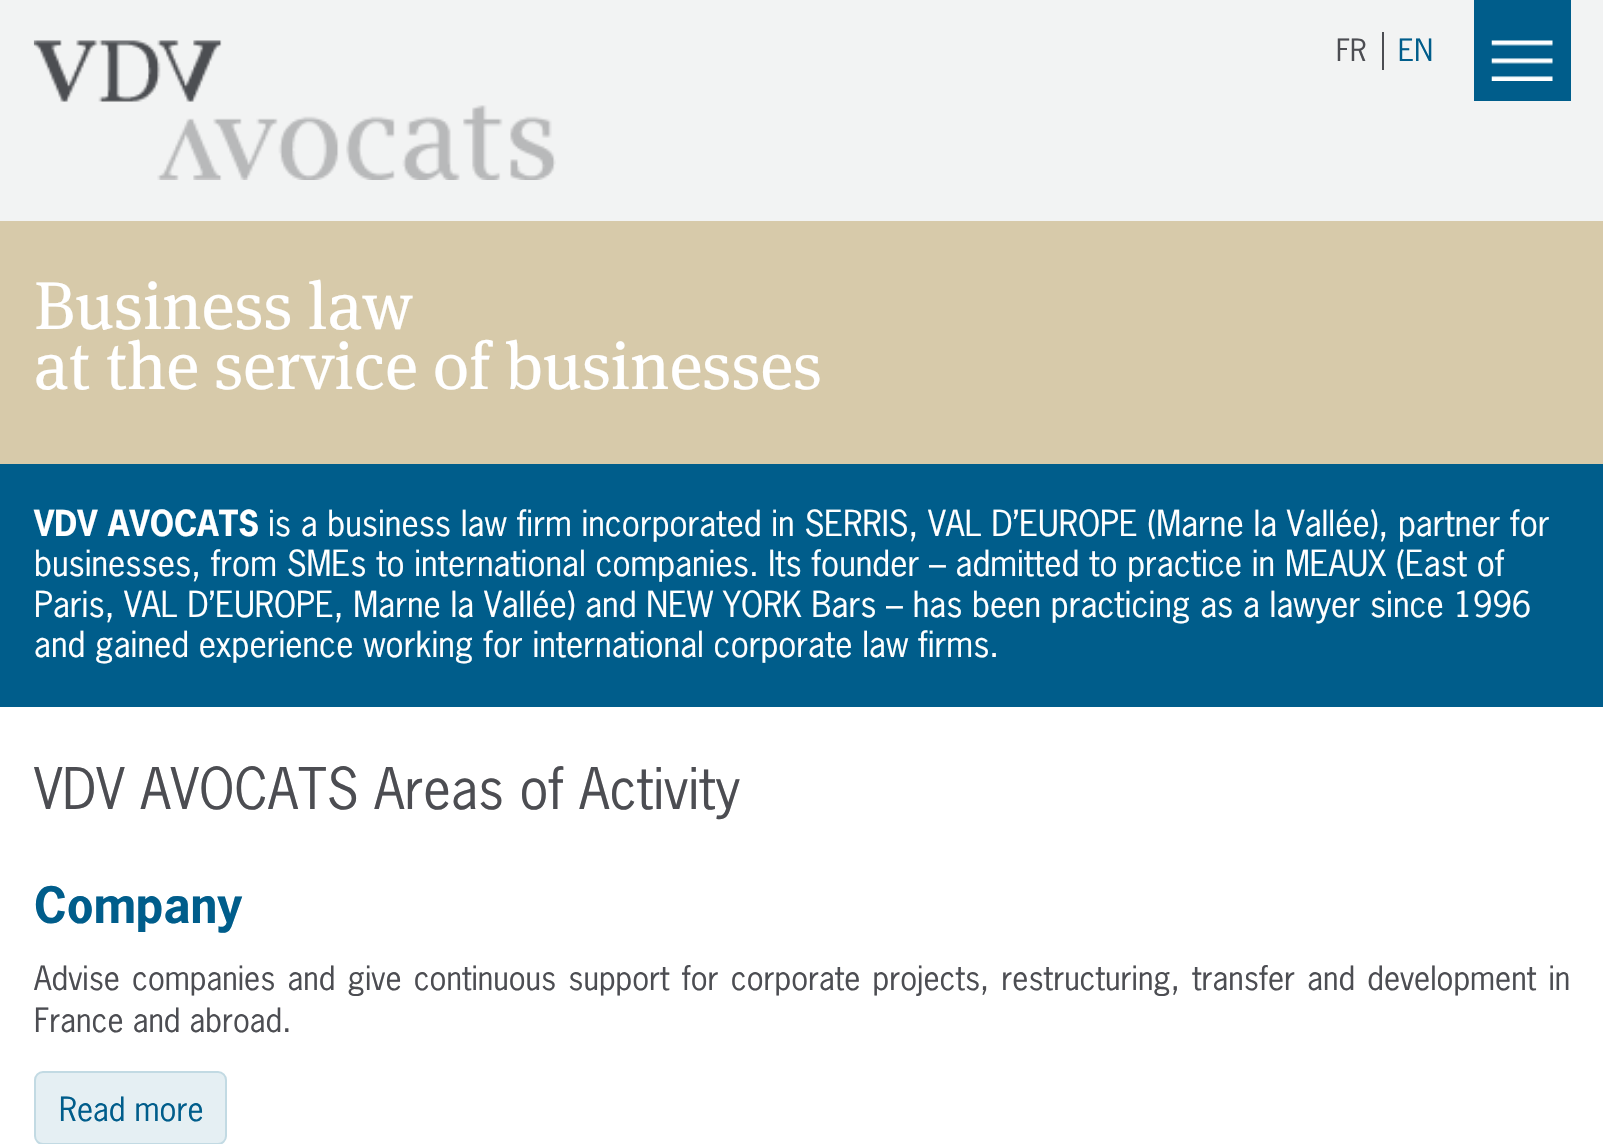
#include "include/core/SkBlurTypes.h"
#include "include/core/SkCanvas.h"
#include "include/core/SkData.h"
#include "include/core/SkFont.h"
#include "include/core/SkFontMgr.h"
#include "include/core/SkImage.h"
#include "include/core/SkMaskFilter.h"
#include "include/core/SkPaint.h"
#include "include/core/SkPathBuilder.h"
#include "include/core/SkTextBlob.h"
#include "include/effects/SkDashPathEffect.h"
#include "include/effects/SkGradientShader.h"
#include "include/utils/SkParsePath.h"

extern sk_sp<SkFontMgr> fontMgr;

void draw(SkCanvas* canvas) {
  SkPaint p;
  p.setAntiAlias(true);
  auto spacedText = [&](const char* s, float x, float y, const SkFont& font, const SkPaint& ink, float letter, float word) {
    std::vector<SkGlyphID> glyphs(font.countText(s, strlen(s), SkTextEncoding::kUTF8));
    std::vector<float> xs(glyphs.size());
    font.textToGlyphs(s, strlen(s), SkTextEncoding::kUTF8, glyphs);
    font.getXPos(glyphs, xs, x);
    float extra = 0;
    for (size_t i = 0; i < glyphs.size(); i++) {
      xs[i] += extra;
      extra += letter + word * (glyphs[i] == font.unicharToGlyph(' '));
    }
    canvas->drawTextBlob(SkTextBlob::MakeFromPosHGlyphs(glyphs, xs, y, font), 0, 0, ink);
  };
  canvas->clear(SkColorSetRGB(242, 243, 243));
  canvas->drawImageRect(SkImages::DeferredFromEncodedData(SkData::MakeFromFileName("images/1.png")), SkRect::MakeLTRB(33, 40, 556, 180), SkSamplingOptions());
  p.setColor(SkColorSetRGB(76, 77, 82));
  canvas->drawRect(SkRect::MakeLTRB(1382, 32, 1384, 70), p);
  p.setColor(SkColorSetRGB(0, 93, 139));
  canvas->drawRect(SkRect::MakeLTRB(1474, 0, 1571, 101), p);
  canvas->drawImageRect(SkImages::DeferredFromEncodedData(SkData::MakeFromFileName("images/2.png")), SkRect::MakeLTRB(1491, 40, 1553, 81), SkSamplingOptions());
  p.setColor(SkColorSetRGB(215, 202, 170));
  canvas->drawRect(SkRect::MakeLTRB(0, 221, 1603, 464), p);
  p.setColor(SkColorSetRGB(0, 93, 139));
  canvas->drawRect(SkRect::MakeLTRB(0, 464, 1603, 707), p);
  p.setColor(SK_ColorWHITE);
  canvas->drawRect(SkRect::MakeLTRB(0, 707, 1603, 1144), p);
  p.setColor(SkColorSetRGB(229, 239, 243));
  canvas->drawRoundRect(SkRect::MakeLTRB(35, 1072, 226, 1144), 8, 8, p);
  p.setStyle(SkPaint::kStroke_Style);
  p.setStrokeWidth(2);
  p.setColor(SkColorSetRGB(194, 218, 227));
  canvas->drawRoundRect(SkRect::MakeLTRB(35, 1072, 226, 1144), 8, 8, p);
  SkFont font1(fontMgr->matchFamilyStyle("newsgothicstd", SkFontStyle::Normal()), 29);
  font1.setSubpixel(true);
  p.setStyle(SkPaint::kFill_Style);
  p.setColor(SkColorSetRGB(76, 77, 82));
  canvas->drawString("FR", 1336, 61, font1, p);
  p.setColor(SkColorSetRGB(0, 93, 139));
  canvas->drawString("EN", 1398, 61, font1, p);
  SkFont font2(fontMgr->matchFamilyStyle("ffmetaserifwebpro", SkFontStyle(500, SkFontStyle::kNormal_Width, SkFontStyle::kUpright_Slant)), 67.5f);
  font2.setSubpixel(true);
  p.setColor(SK_ColorWHITE);
  canvas->drawString("Business law", 34, 329, font2, p);
  canvas->drawString("at the service of businesses", 34, 389, font2, p);
  SkFont font3(fontMgr->matchFamilyStyle("newsgothicstd", SkFontStyle::Bold()), 33.75f);
  font3.setSubpixel(true);
  canvas->drawString("VDV AVOCATS", 34, 536, font3, p);
  SkFont font4(fontMgr->matchFamilyStyle("newsgothicstd", SkFontStyle::Normal()), 33.75f);
  font4.setSubpixel(true);
  canvas->drawString("is a business law firm incorporated in SERRIS, VAL D’EUROPE (Marne la Vallée), partner for", 268, 536, font4, p);
  canvas->drawString("businesses, from SMEs to international companies. Its founder – admitted to practice in MEAUX (East of", 34, 576, font4, p);
  canvas->drawString("Paris, VAL D’EUROPE, Marne la Vallée) and NEW YORK Bars – has been practicing as a lawyer since 1996", 34, 617, font4, p);
  canvas->drawString("and gained experience working for international corporate law firms.", 34, 657, font4, p);
  SkFont font5(fontMgr->matchFamilyStyle("newsgothicstd", SkFontStyle::Normal()), 54);
  font5.setSubpixel(true);
  p.setColor(SkColorSetRGB(76, 77, 82));
  canvas->drawString("VDV AVOCATS Areas of Activity", 34, 809, font5, p);
  SkFont font6(fontMgr->matchFamilyStyle("newsgothicstd", SkFontStyle::Bold()), 47.25f);
  font6.setSubpixel(true);
  p.setColor(SkColorSetRGB(0, 93, 139));
  canvas->drawString("Company", 34, 923, font6, p);
  SkFont font7(fontMgr->matchFamilyStyle("newsgothicstd", SkFontStyle::Normal()), 31.5f);
  font7.setSubpixel(true);
  p.setColor(SkColorSetRGB(76, 77, 82));
  spacedText("Advise companies and give continuous support for corporate projects, restructuring, transfer and development in", 34, 990, font7, p, 0, 3.1f);
  canvas->drawString("France and abroad.", 34, 1032, font7, p);
  p.setColor(SkColorSetRGB(0, 93, 139));
  canvas->drawString("Read more", 59, 1121, font7, p);
}
